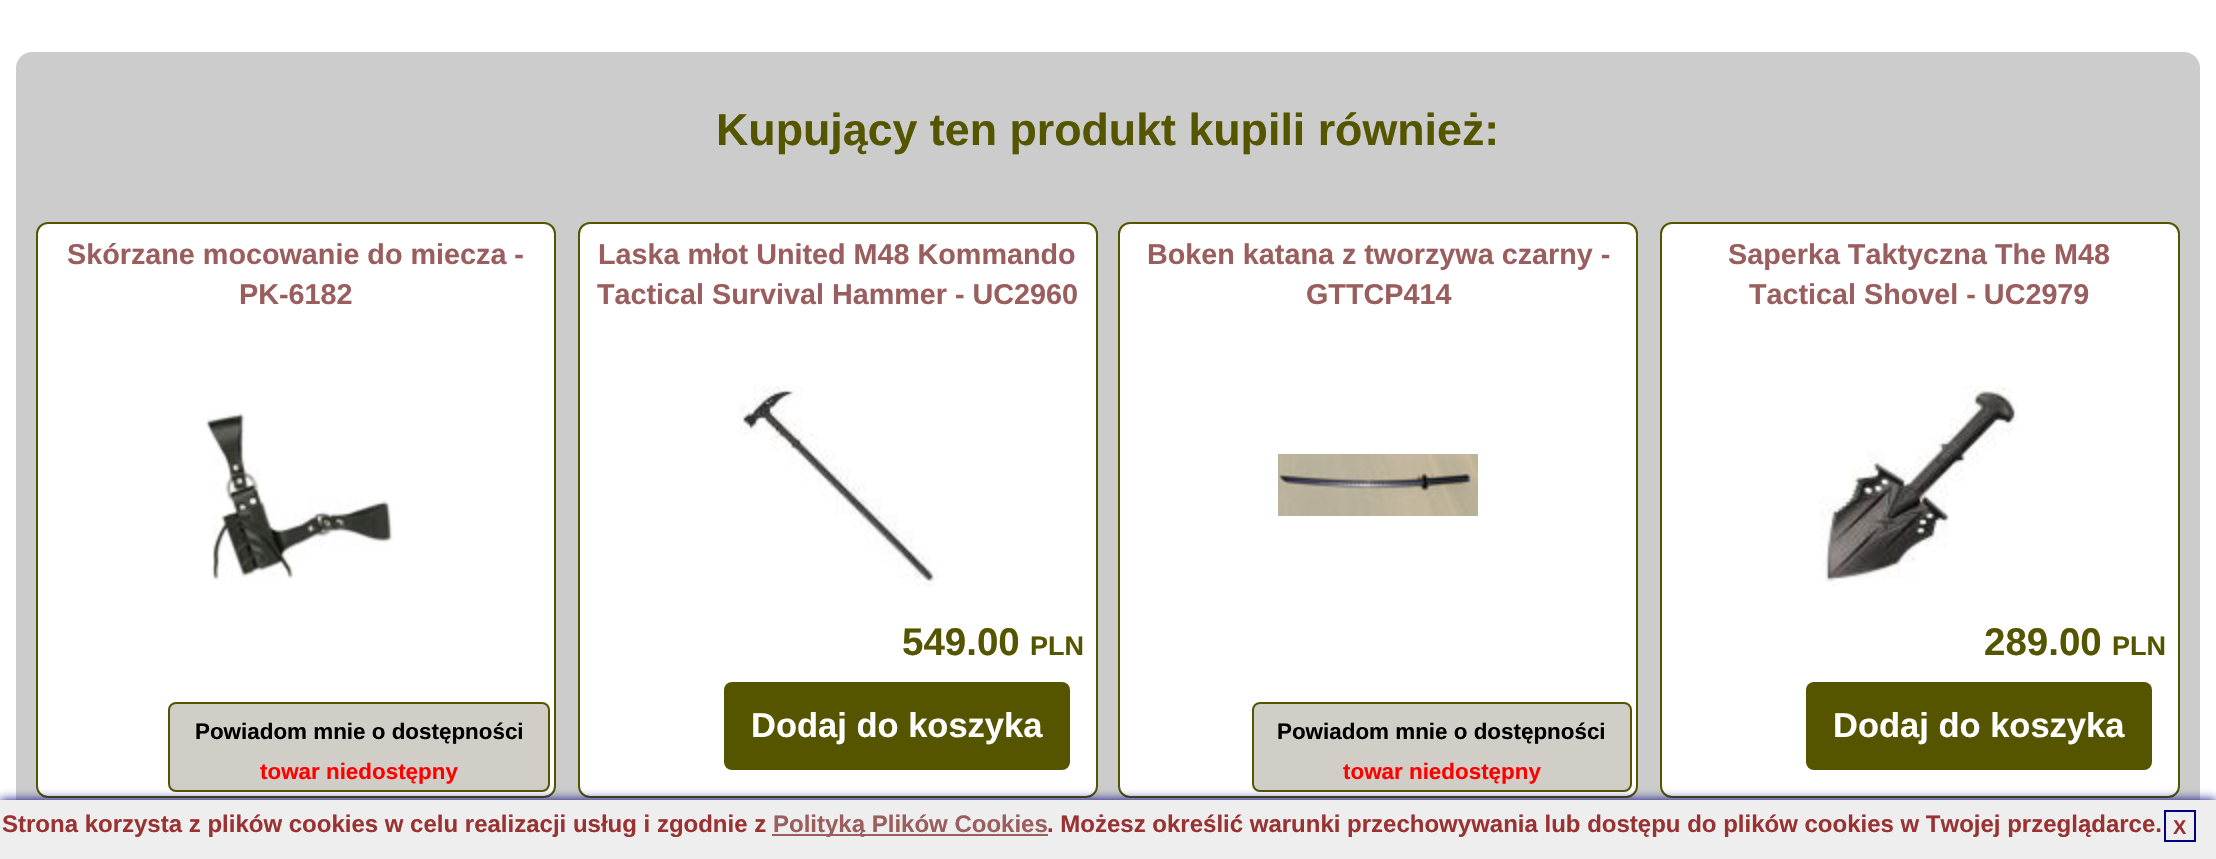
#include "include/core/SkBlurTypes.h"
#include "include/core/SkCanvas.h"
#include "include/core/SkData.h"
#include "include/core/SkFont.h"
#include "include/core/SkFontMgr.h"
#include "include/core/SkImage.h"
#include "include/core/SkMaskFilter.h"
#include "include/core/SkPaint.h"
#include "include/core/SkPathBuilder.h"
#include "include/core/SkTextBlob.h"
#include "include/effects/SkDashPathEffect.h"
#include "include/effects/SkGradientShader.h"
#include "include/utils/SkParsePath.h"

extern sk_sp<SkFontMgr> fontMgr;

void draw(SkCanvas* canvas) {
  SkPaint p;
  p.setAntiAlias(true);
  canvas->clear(SK_ColorWHITE);
  p.setColor(SkColorSetRGB(204, 204, 204));
  canvas->drawRoundRect(SkRect::MakeLTRB(16, 52, 2200, 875), 16, 16, p);
  p.setColor(SK_ColorWHITE);
  canvas->drawRoundRect(SkRect::MakeLTRB(37, 223, 555, 797), 11, 11, p);
  p.setStyle(SkPaint::kStroke_Style);
  p.setStrokeWidth(2);
  p.setColor(SkColorSetRGB(85, 85, 0));
  canvas->drawRoundRect(SkRect::MakeLTRB(37, 223, 555, 797), 11, 11, p);
  canvas->drawImageRect(SkImages::DeferredFromEncodedData(SkData::MakeFromFileName("images/1.png")), SkRect::MakeLTRB(205, 410, 393, 581), SkSamplingOptions());
  p.setStyle(SkPaint::kFill_Style);
  p.setColor(SkColorSetRGB(209, 206, 200));
  canvas->drawRoundRect(SkRect::MakeLTRB(169, 703, 549, 791), 7, 7, p);
  p.setStyle(SkPaint::kStroke_Style);
  p.setColor(SkColorSetRGB(85, 85, 0));
  canvas->drawRoundRect(SkRect::MakeLTRB(169, 703, 549, 791), 7, 7, p);
  p.setStyle(SkPaint::kFill_Style);
  p.setColor(SK_ColorWHITE);
  canvas->drawRoundRect(SkRect::MakeLTRB(579, 223, 1097, 797), 11, 11, p);
  p.setStyle(SkPaint::kStroke_Style);
  p.setColor(SkColorSetRGB(85, 85, 0));
  canvas->drawRoundRect(SkRect::MakeLTRB(579, 223, 1097, 797), 11, 11, p);
  canvas->drawImageRect(SkImages::DeferredFromEncodedData(SkData::MakeFromFileName("images/2.png")), SkRect::MakeLTRB(738, 386, 938, 586), SkSamplingOptions());
  p.setStyle(SkPaint::kFill_Style);
  canvas->drawRoundRect(SkRect::MakeLTRB(724, 682, 1070, 770), 8, 8, p);
  p.setColor(SK_ColorWHITE);
  canvas->drawRoundRect(SkRect::MakeLTRB(1119, 223, 1637, 797), 11, 11, p);
  p.setStyle(SkPaint::kStroke_Style);
  p.setColor(SkColorSetRGB(85, 85, 0));
  canvas->drawRoundRect(SkRect::MakeLTRB(1119, 223, 1637, 797), 11, 11, p);
  canvas->drawImageRect(SkImages::DeferredFromEncodedData(SkData::MakeFromFileName("images/3.png")), SkRect::MakeLTRB(1278, 454, 1478, 516), SkSamplingOptions());
  p.setStyle(SkPaint::kFill_Style);
  p.setColor(SkColorSetRGB(209, 206, 200));
  canvas->drawRoundRect(SkRect::MakeLTRB(1253, 703, 1631, 791), 7, 7, p);
  p.setStyle(SkPaint::kStroke_Style);
  p.setColor(SkColorSetRGB(85, 85, 0));
  canvas->drawRoundRect(SkRect::MakeLTRB(1253, 703, 1631, 791), 7, 7, p);
  p.setStyle(SkPaint::kFill_Style);
  p.setColor(SK_ColorWHITE);
  canvas->drawRoundRect(SkRect::MakeLTRB(1661, 223, 2179, 797), 11, 11, p);
  p.setStyle(SkPaint::kStroke_Style);
  p.setColor(SkColorSetRGB(85, 85, 0));
  canvas->drawRoundRect(SkRect::MakeLTRB(1661, 223, 2179, 797), 11, 11, p);
  canvas->drawImageRect(SkImages::DeferredFromEncodedData(SkData::MakeFromFileName("images/4.png")), SkRect::MakeLTRB(1820, 386, 2018, 586), SkSamplingOptions());
  p.setStyle(SkPaint::kFill_Style);
  canvas->drawRoundRect(SkRect::MakeLTRB(1806, 682, 2152, 770), 8, 8, p);
  p.setColor(SkColorSetRGB(0, 0, 128));
  p.setMaskFilter(SkMaskFilter::MakeBlur(kNormal_SkBlurStyle, 5));
  canvas->drawRect(SkRect::MakeLTRB(0, 800, 2216, 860), p);
  p.setMaskFilter(nullptr);
  p.setColor(SkColorSetRGB(238, 238, 238));
  canvas->drawRect(SkRect::MakeLTRB(0, 800, 2216, 859), p);
  p.setColor(SkColorSetRGB(155, 94, 94));
  canvas->drawRect(SkRect::MakeLTRB(772, 834, 1048, 836), p);
  p.setStyle(SkPaint::kStroke_Style);
  p.setColor(SkColorSetRGB(0, 0, 128));
  canvas->drawRect(SkRect::MakeLTRB(2165, 811, 2195, 841), p);
  SkFont font1(fontMgr->matchFamilyStyle("Liberation Sans", SkFontStyle::Bold()), 44.75f);
  font1.setSubpixel(true);
  p.setStyle(SkPaint::kFill_Style);
  p.setColor(SkColorSetRGB(85, 85, 0));
  canvas->drawString("Kupujący ten produkt kupili również:", 716, 145, font1, p);
  SkFont font2(fontMgr->matchFamilyStyle("Liberation Sans", SkFontStyle::Bold()), 28.75f);
  font2.setSubpixel(true);
  p.setColor(SkColorSetRGB(155, 94, 94));
  canvas->drawString("Skórzane mocowanie do miecza -", 67, 264, font2, p);
  canvas->drawString("PK-6182", 239, 304, font2, p);
  SkFont font3(fontMgr->matchFamilyStyle("Liberation Sans", SkFontStyle::Bold()), 22.4f);
  font3.setSubpixel(true);
  p.setColor(SK_ColorBLACK);
  canvas->drawString("Powiadom mnie o dostępności", 195, 739, font3, p);
  p.setColor(SkColorSetRGB(255, 0, 0));
  canvas->drawString("towar niedostępny", 260, 779, font3, p);
  p.setColor(SkColorSetRGB(155, 94, 94));
  canvas->drawString("Laska młot United M48 Kommando", 598, 264, font2, p);
  canvas->drawString("Tactical Survival Hammer - UC2960", 597, 304, font2, p);
  SkFont font4(fontMgr->matchFamilyStyle("Liberation Sans", SkFontStyle::Bold()), 38.5f);
  font4.setSubpixel(true);
  p.setColor(SkColorSetRGB(85, 85, 0));
  canvas->drawString("549.00", 902, 655, font4, p);
  SkFont font5(fontMgr->matchFamilyStyle("Liberation Sans", SkFontStyle::Bold()), 27);
  font5.setSubpixel(true);
  canvas->drawString("PLN", 1030, 655, font5, p);
  SkFont font6(fontMgr->matchFamilyStyle("Liberation Sans", SkFontStyle::Bold()), 34.5f);
  font6.setSubpixel(true);
  p.setColor(SK_ColorWHITE);
  canvas->drawString("Dodaj do koszyka", 751, 737, font6, p);
  p.setColor(SkColorSetRGB(155, 94, 94));
  canvas->drawString("Boken katana z tworzywa czarny -", 1147, 264, font2, p);
  canvas->drawString("GTTCP414", 1306, 304, font2, p);
  p.setColor(SK_ColorBLACK);
  canvas->drawString("Powiadom mnie o dostępności", 1277, 739, font3, p);
  p.setColor(SkColorSetRGB(255, 0, 0));
  canvas->drawString("towar niedostępny", 1343, 779, font3, p);
  p.setColor(SkColorSetRGB(155, 94, 94));
  canvas->drawString("Saperka Taktyczna The M48", 1728, 264, font2, p);
  canvas->drawString("Tactical Shovel - UC2979", 1749, 304, font2, p);
  p.setColor(SkColorSetRGB(85, 85, 0));
  canvas->drawString("289.00", 1984, 655, font4, p);
  canvas->drawString("PLN", 2112, 655, font5, p);
  p.setColor(SK_ColorWHITE);
  canvas->drawString("Dodaj do koszyka", 1833, 737, font6, p);
  SkFont font7(fontMgr->matchFamilyStyle("Liberation Sans", SkFontStyle::Bold()), 24);
  font7.setSubpixel(true);
  p.setColor(SkColorSetRGB(153, 51, 51));
  canvas->drawString("Strona korzysta z plików cookies w celu realizacji usług i zgodnie z", 2, 832, font7, p);
  p.setColor(SkColorSetRGB(155, 94, 94));
  canvas->drawString("Polityką Plików Cookies", 773, 832, font7, p);
  p.setColor(SkColorSetRGB(153, 51, 51));
  canvas->drawString(". Możesz określić warunki przechowywania lub dostępu do plików cookies w Twojej przeglądarce.", 1047, 832, font7, p);
  SkFont font8(fontMgr->matchFamilyStyle("Liberation Sans", SkFontStyle::Bold()), 20);
  font8.setSubpixel(true);
  canvas->drawString("X", 2173, 834, font8, p);
}
